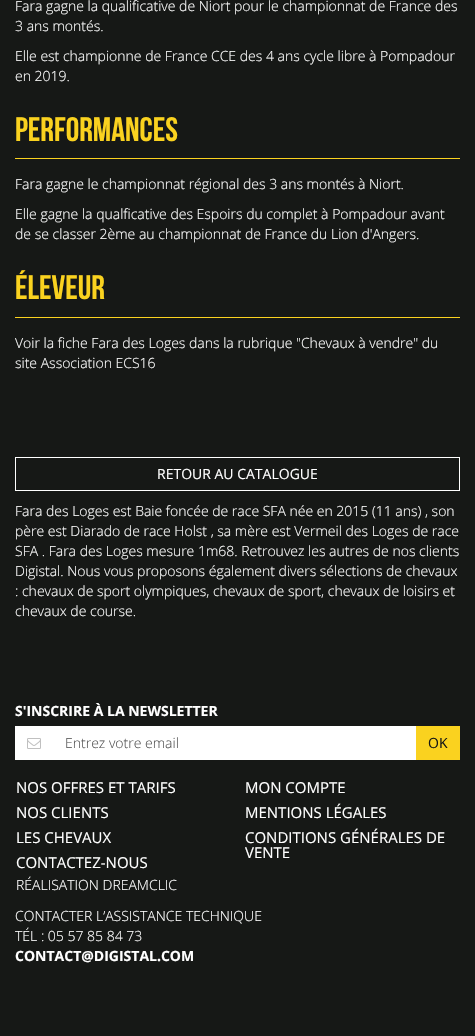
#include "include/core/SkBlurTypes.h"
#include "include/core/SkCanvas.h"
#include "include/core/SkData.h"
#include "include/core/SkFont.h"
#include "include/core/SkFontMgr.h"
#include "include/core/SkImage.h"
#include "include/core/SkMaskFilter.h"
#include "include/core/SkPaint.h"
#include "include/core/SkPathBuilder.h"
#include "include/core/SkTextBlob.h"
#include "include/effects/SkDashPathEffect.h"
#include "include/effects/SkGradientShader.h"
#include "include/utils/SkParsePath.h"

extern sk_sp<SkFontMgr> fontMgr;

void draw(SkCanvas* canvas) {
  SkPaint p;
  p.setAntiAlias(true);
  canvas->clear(SkColorSetRGB(22, 24, 22));
  p.setColor(SkColorSetRGB(250, 210, 31));
  canvas->drawRect(SkRect::MakeLTRB(15, 158, 460, 159), p);
  canvas->drawRect(SkRect::MakeLTRB(15, 317, 460, 318), p);
  p.setStyle(SkPaint::kStroke_Style);
  p.setStrokeWidth(1);
  p.setColor(SK_ColorWHITE);
  canvas->drawRect(SkRect::MakeLTRB(15.5f, 457.5f, 459.5f, 490.5f), p);
  p.setStyle(SkPaint::kFill_Style);
  canvas->drawRect(SkRect::MakeLTRB(15, 726, 416, 760), p);
  canvas->drawImageRect(SkImages::DeferredFromEncodedData(SkData::MakeFromFileName("images/1.png")), SkRect::MakeLTRB(27, 738, 41, 749), SkSamplingOptions());
  p.setColor(SkColorSetRGB(250, 210, 31));
  canvas->drawRect(SkRect::MakeLTRB(416, 726, 460, 760), p);
  SkFont font1(fontMgr->matchFamilyStyle("Open Sans", SkFontStyle(300, SkFontStyle::kNormal_Width, SkFontStyle::kUpright_Slant)), 14);
  font1.setSubpixel(true);
  p.setColor(SK_ColorWHITE);
  canvas->drawString("Fara gagne la qualificative de Niort pour le championnat de France des", 15, 11, font1, p);
  canvas->drawString("3 ans montés.", 15, 31, font1, p);
  canvas->drawString("Elle est championne de France CCE des 4 ans cycle libre à Pompadour", 15, 61, font1, p);
  canvas->drawString("en 2019.", 15, 81, font1, p);
  SkFont font2(fontMgr->matchFamilyStyle("Bebas Neue", SkFontStyle::Normal()), 34);
  font2.setSubpixel(true);
  p.setColor(SkColorSetRGB(250, 210, 31));
  canvas->drawString("PERFORMANCES", 15, 141, font2, p);
  p.setColor(SK_ColorWHITE);
  canvas->drawString("Fara gagne le championnat régional des 3 ans montés à Niort.", 15, 189, font1, p);
  canvas->drawString("Elle gagne la qualficative des Espoirs du complet à Pompadour avant", 15, 219, font1, p);
  canvas->drawString("de se classer 2ème au championnat de France du Lion d'Angers.", 15, 239, font1, p);
  p.setColor(SkColorSetRGB(250, 210, 31));
  canvas->drawString("ÉLEVEUR", 15, 299, font2, p);
  p.setColor(SK_ColorWHITE);
  canvas->drawString("Voir la fiche Fara des Loges dans la rubrique \"Chevaux à vendre\" du", 15, 348, font1, p);
  canvas->drawString("site Association ECS16", 15, 368, font1, p);
  SkFont font3(fontMgr->matchFamilyStyle("Open Sans", SkFontStyle::Normal()), 14);
  font3.setSubpixel(true);
  canvas->drawString("RETOUR AU CATALOGUE", 157, 479, font3, p);
  canvas->drawString("Fara des Loges est Baie foncée de race SFA née en 2015 (11 ans) , son", 15, 516, font1, p);
  canvas->drawString("père est Diarado de race Holst , sa mère est Vermeil des Loges de race", 15, 536, font1, p);
  canvas->drawString("SFA . Fara des Loges mesure 1m68. Retrouvez les autres de nos clients", 15, 556, font1, p);
  canvas->drawString("Digistal. Nous vous proposons également divers sélections de chevaux", 15, 576, font1, p);
  canvas->drawString(": chevaux de sport olympiques, chevaux de sport, chevaux de loisirs et", 15, 596, font1, p);
  canvas->drawString("chevaux de course.", 15, 616, font1, p);
  SkFont font4(fontMgr->matchFamilyStyle("Open Sans", SkFontStyle::Bold()), 14);
  font4.setSubpixel(true);
  canvas->drawString("S'INSCRIRE À LA NEWSLETTER", 15, 716, font4, p);
  p.setColor(SkColorSetRGB(85, 85, 85));
  canvas->drawString("Entrez votre email", 65, 748, font1, p);
  p.setColor(SkColorSetRGB(22, 24, 22));
  canvas->drawString("OK", 428, 748, font3, p);
  SkFont font5(fontMgr->matchFamilyStyle("Open Sans", SkFontStyle::Normal()), 15);
  font5.setSubpixel(true);
  p.setColor(SK_ColorWHITE);
  canvas->drawString("NOS OFFRES ET TARIFS", 16, 793, font5, p);
  canvas->drawString("MON COMPTE", 245, 793, font5, p);
  canvas->drawString("NOS CLIENTS", 16, 818, font5, p);
  canvas->drawString("MENTIONS LÉGALES", 245, 818, font5, p);
  canvas->drawString("LES CHEVAUX", 16, 843, font5, p);
  canvas->drawString("CONDITIONS GÉNÉRALES DE", 245, 843, font5, p);
  canvas->drawString("VENTE", 245, 858, font5, p);
  canvas->drawString("CONTACTEZ-NOUS", 16, 868, font5, p);
  canvas->drawString("RÉALISATION DREAMCLIC", 16, 890, font1, p);
  canvas->drawString("CONTACTER L’ASSISTANCE TECHNIQUE", 15, 921, font1, p);
  canvas->drawString("TÉL : 05 57 85 84 73", 15, 941, font1, p);
  canvas->drawString("CONTACT@DIGISTAL.COM", 15, 961, font4, p);
}
